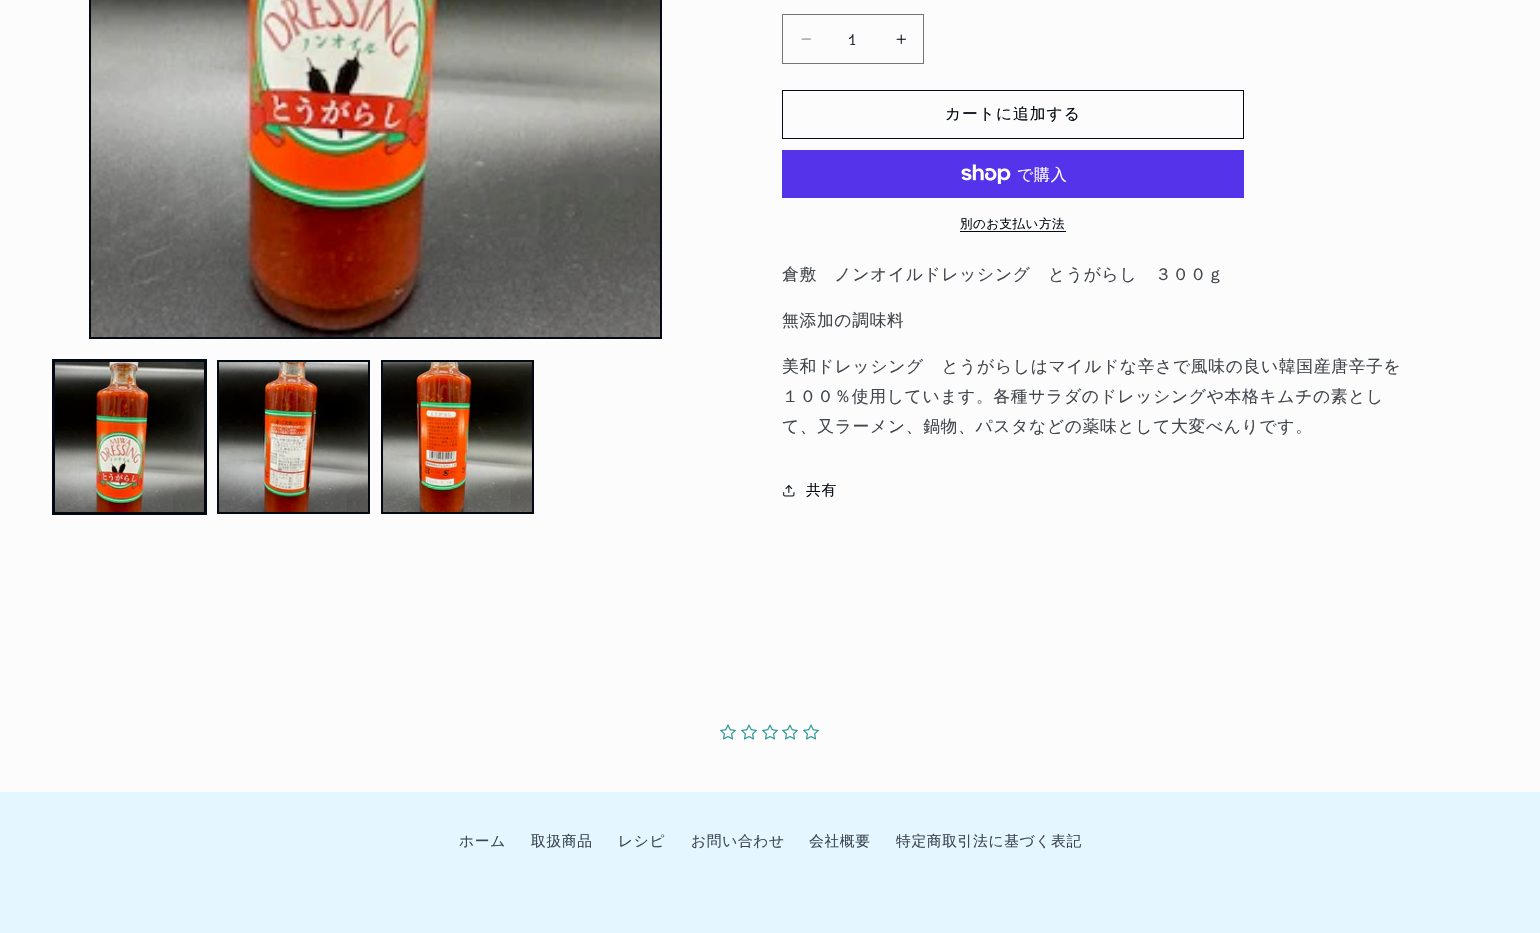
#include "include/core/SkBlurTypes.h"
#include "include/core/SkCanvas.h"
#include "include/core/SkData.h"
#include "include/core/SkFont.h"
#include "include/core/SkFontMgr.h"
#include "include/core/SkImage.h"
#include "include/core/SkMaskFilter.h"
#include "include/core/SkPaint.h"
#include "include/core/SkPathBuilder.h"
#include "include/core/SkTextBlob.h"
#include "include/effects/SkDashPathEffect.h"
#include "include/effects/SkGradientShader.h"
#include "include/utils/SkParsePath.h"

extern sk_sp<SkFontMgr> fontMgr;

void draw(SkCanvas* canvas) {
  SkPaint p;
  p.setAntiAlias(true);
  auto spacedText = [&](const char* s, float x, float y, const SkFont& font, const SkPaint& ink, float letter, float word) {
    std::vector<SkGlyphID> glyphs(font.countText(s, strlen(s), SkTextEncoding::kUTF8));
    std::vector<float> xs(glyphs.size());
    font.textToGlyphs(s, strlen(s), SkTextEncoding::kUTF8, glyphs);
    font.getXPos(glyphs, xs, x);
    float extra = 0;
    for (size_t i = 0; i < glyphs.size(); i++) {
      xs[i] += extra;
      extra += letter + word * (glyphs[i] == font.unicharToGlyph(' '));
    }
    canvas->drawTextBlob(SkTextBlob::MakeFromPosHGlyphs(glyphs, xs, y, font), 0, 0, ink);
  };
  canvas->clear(SkColorSetRGB(252, 252, 252));
  p.setStyle(SkPaint::kStroke_Style);
  p.setStrokeWidth(2);
  p.setColor(SkColorSetRGB(2, 9, 18));
  canvas->drawRect(SkRect::MakeLTRB(90, -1, 661, 338), p);
  canvas->drawImageRect(SkImages::DeferredFromEncodedData(SkData::MakeFromFileName("images/1.png")), SkRect::MakeLTRB(91, 0, 660, 337), SkSamplingOptions());
  p.setStrokeWidth(1);
  canvas->drawRect(SkRect::MakeLTRB(52.5f, 359.5f, 206.5f, 514.5f), p);
  p.setStrokeWidth(2);
  canvas->drawRect(SkRect::MakeLTRB(54, 361, 205, 513), p);
  canvas->drawImageRect(SkImages::DeferredFromEncodedData(SkData::MakeFromFileName("images/2.png")), SkRect::MakeLTRB(55, 362, 204, 512), SkSamplingOptions());
  canvas->drawRect(SkRect::MakeLTRB(218, 361, 369, 513), p);
  canvas->drawImageRect(SkImages::DeferredFromEncodedData(SkData::MakeFromFileName("images/3.png")), SkRect::MakeLTRB(219, 362, 368, 512), SkSamplingOptions());
  canvas->drawRect(SkRect::MakeLTRB(382, 361, 533, 513), p);
  canvas->drawImageRect(SkImages::DeferredFromEncodedData(SkData::MakeFromFileName("images/4.png")), SkRect::MakeLTRB(383, 362, 532, 512), SkSamplingOptions());
  canvas->drawImageRect(SkImages::DeferredFromEncodedData(SkData::MakeFromFileName("images/5.png")), SkRect::MakeLTRB(801, 38, 811, 40), SkSamplingOptions());
  canvas->drawImageRect(SkImages::DeferredFromEncodedData(SkData::MakeFromFileName("images/6.png")), SkRect::MakeLTRB(896, 34, 906, 44), SkSamplingOptions());
  p.setStrokeWidth(1);
  p.setColor(SkColorSetRGB(114, 118, 123));
  canvas->drawRect(SkRect::MakeLTRB(782.5f, 14.5f, 923.5f, 63.5f), p);
  p.setColor(SkColorSetRGB(2, 9, 18));
  canvas->drawRect(SkRect::MakeLTRB(782.5f, 90.5f, 1243.5f, 138.5f), p);
  p.setStyle(SkPaint::kFill_Style);
  p.setColor(SkColorSetRGB(84, 51, 235));
  canvas->drawRect(SkRect::MakeLTRB(782, 150, 1244, 198), p);
  canvas->drawImageRect(SkImages::DeferredFromEncodedData(SkData::MakeFromFileName("images/7.png")), SkRect::MakeLTRB(961, 164, 1011, 184), SkSamplingOptions());
  p.setColor(SkColorSetRGB(2, 9, 18));
  canvas->drawRect(SkRect::MakeLTRB(960, 231, 1066, 232), p);
  canvas->drawImageRect(SkImages::DeferredFromEncodedData(SkData::MakeFromFileName("images/8.png")), SkRect::MakeLTRB(783, 485, 795, 497), SkSamplingOptions());
  canvas->drawImageRect(SkImages::DeferredFromEncodedData(SkData::MakeFromFileName("images/9.png")), SkRect::MakeLTRB(720, 724, 736, 740), SkSamplingOptions());
  canvas->drawImageRect(SkImages::DeferredFromEncodedData(SkData::MakeFromFileName("images/9.png")), SkRect::MakeLTRB(741, 724, 757, 740), SkSamplingOptions());
  canvas->drawImageRect(SkImages::DeferredFromEncodedData(SkData::MakeFromFileName("images/9.png")), SkRect::MakeLTRB(762, 724, 778, 740), SkSamplingOptions());
  canvas->drawImageRect(SkImages::DeferredFromEncodedData(SkData::MakeFromFileName("images/9.png")), SkRect::MakeLTRB(782, 724, 798, 740), SkSamplingOptions());
  canvas->drawImageRect(SkImages::DeferredFromEncodedData(SkData::MakeFromFileName("images/9.png")), SkRect::MakeLTRB(803, 724, 819, 740), SkSamplingOptions());
  p.setColor(SkColorSetRGB(228, 246, 255));
  canvas->drawRect(SkRect::MakeLTRB(0, 792, 1540, 933), p);
  SkFont font1(fontMgr->matchFamilyStyle("Anonymous Pro", SkFontStyle::Normal()), 16.8f);
  font1.setSubpixel(true);
  p.setColor(SkColorSetRGB(40, 45, 53));
  canvas->drawString("1", 849, 45, font1, p);
  SkFont font2(fontMgr->matchFamilyStyle("WenQuanYi Zen Hei", SkFontStyle(500, SkFontStyle::kNormal_Width, SkFontStyle::kUpright_Slant)), 15.75f);
  font2.setSubpixel(true);
  p.setColor(SkColorSetRGB(2, 9, 18));
  spacedText("カートに追加する", 945, 119, font2, p, 1, 0);
  SkFont font3(fontMgr->matchFamilyStyle("WenQuanYi Zen Hei", SkFontStyle(500, SkFontStyle::kNormal_Width, SkFontStyle::kUpright_Slant)), 16);
  font3.setSubpixel(true);
  p.setColor(SK_ColorWHITE);
  spacedText("で購入", 1017, 180, font3, p, 0.65f, 0);
  SkFont font4(fontMgr->matchFamilyStyle("WenQuanYi Zen Hei", SkFontStyle(500, SkFontStyle::kNormal_Width, SkFontStyle::kUpright_Slant)), 12.5f);
  font4.setSubpixel(true);
  p.setColor(SkColorSetRGB(2, 9, 18));
  spacedText("別のお支払い方法", 960, 228, font4, p, 0.5f, 0);
  SkFont font5(fontMgr->matchFamilyStyle("WenQuanYi Zen Hei", SkFontStyle(500, SkFontStyle::kNormal_Width, SkFontStyle::kUpright_Slant)), 16.8f);
  font5.setSubpixel(true);
  p.setColor(SkColorSetRGB(65, 70, 77));
  spacedText("倉敷　ノンオイルドレッシング　とうがらし　３００ｇ", 782, 280, font5, p, 0.65f, 0);
  spacedText("無添加の調味料", 782, 326, font5, p, 0.65f, 0);
  spacedText("美和ドレッシング　とうがらしはマイルドな辛さで風味の良い韓国産唐辛子を", 782, 372, font5, p, 0.65f, 0);
  spacedText("１００％使用しています。各種サラダのドレッシングや本格キムチの素とし", 782, 402, font5, p, 0.65f, 0);
  spacedText("て、又ラーメン、鍋物、パスタなどの薬味として大変べんりです。", 782, 432, font5, p, 0.65f, 0);
  SkFont font6(fontMgr->matchFamilyStyle("WenQuanYi Zen Hei", SkFontStyle(500, SkFontStyle::kNormal_Width, SkFontStyle::kUpright_Slant)), 14.75f);
  font6.setSubpixel(true);
  p.setColor(SkColorSetRGB(2, 9, 18));
  spacedText("共有", 806, 495, font6, p, 0.65f, 0);
  p.setColor(SkColorSetRGB(59, 68, 77));
  spacedText("ホーム", 459, 846, font6, p, 0.65f, 0);
  spacedText("取扱商品", 531, 846, font6, p, 0.65f, 0);
  spacedText("レシピ", 618, 846, font6, p, 0.65f, 0);
  spacedText("お問い合わせ", 691, 846, font6, p, 0.65f, 0);
  spacedText("会社概要", 809, 846, font6, p, 0.65f, 0);
  spacedText("特定商取引法に基づく表記", 896, 846, font6, p, 0.65f, 0);
}
